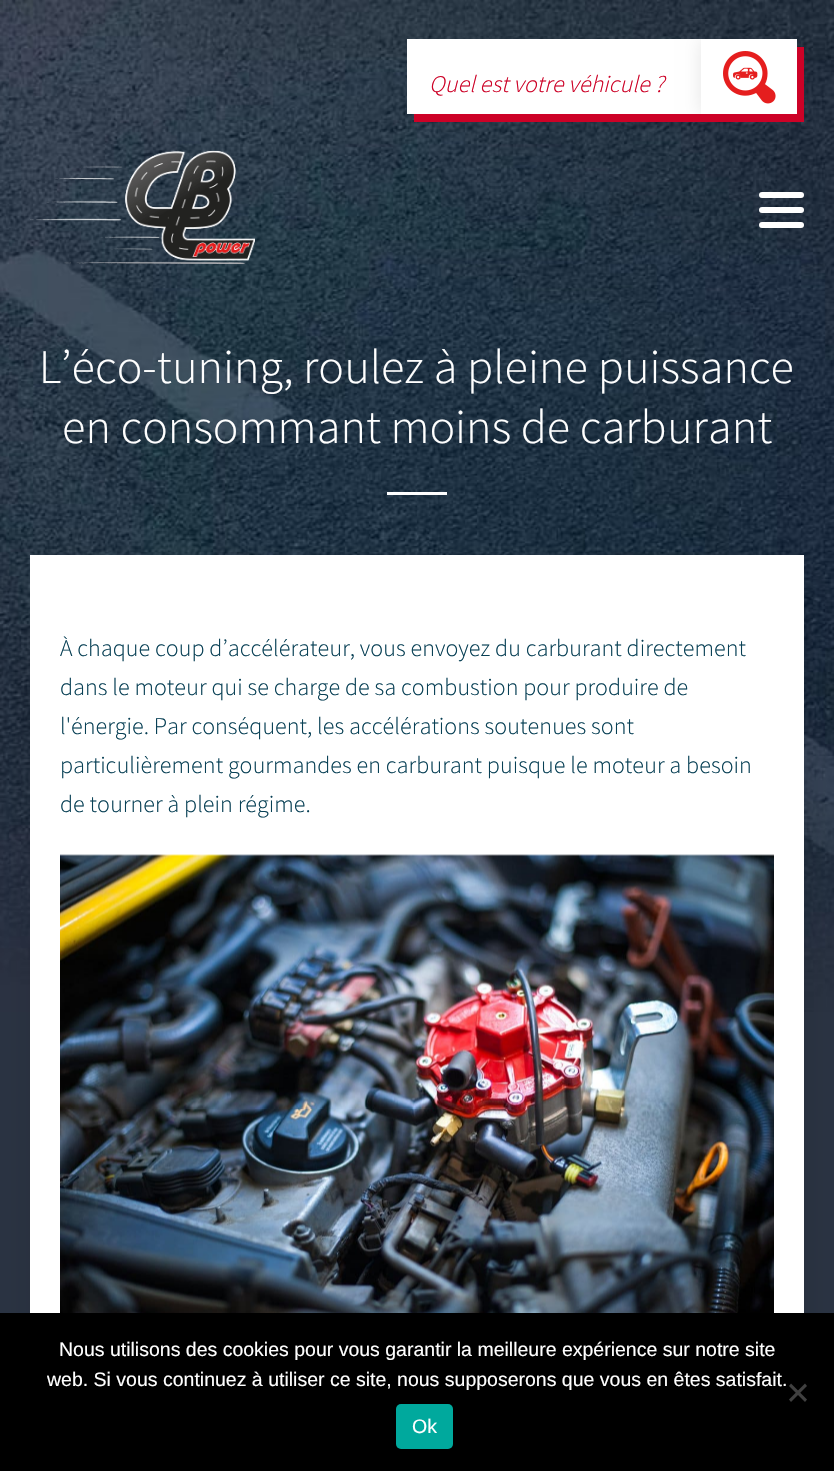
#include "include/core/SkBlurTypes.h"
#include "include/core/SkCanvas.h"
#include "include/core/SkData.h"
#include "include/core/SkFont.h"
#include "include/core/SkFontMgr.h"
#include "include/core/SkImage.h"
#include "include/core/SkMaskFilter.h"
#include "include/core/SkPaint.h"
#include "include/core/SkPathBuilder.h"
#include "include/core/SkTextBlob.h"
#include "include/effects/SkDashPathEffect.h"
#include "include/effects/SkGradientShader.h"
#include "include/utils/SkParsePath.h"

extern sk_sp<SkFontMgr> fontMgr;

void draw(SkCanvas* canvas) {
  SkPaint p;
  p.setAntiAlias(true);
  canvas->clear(SkColorSetRGB(43, 52, 67));
  canvas->drawImageRect(SkImages::DeferredFromEncodedData(SkData::MakeFromFileName("images/1.png")), SkRect::MakeLTRB(0, 0, 834, 1012), SkSamplingOptions());
  p.setColor(SkColorSetRGB(205, 2, 39));
  canvas->drawPath(SkPathBuilder().moveTo(414, 114).lineTo(414, 122).lineTo(804, 122).lineTo(804, 47).lineTo(796, 47).lineTo(796, 114).close().detach(), p);
  p.setColor(SK_ColorWHITE);
  canvas->drawRect(SkRect::MakeLTRB(407, 39, 701, 114), p);
  canvas->save();
  canvas->clipRect(SkRect::MakeLTRB(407, 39, 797, 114));
  p.setColor(SkColorSetARGB(26, 0, 0, 0));
  p.setMaskFilter(SkMaskFilter::MakeBlur(kNormal_SkBlurStyle, 9));
  canvas->drawRect(SkRect::MakeLTRB(701, 39, 797, 114), p);
  p.setMaskFilter(nullptr);
  canvas->restore();
  p.setColor(SK_ColorWHITE);
  canvas->drawRect(SkRect::MakeLTRB(701, 39, 797, 114), p);
  canvas->drawImageRect(SkImages::DeferredFromEncodedData(SkData::MakeFromFileName("images/2.png")), SkRect::MakeLTRB(723, 51, 776, 104), SkSamplingOptions());
  canvas->drawImageRect(SkImages::DeferredFromEncodedData(SkData::MakeFromFileName("images/3.png")), SkRect::MakeLTRB(30, 150, 255, 264), SkSamplingOptions());
  canvas->drawRoundRect(SkRect::MakeLTRB(759, 207, 804, 213), 3, 3, p);
  canvas->drawRoundRect(SkRect::MakeLTRB(759, 192, 804, 198), 3, 3, p);
  canvas->drawRoundRect(SkRect::MakeLTRB(759, 222, 804, 228), 3, 3, p);
  canvas->drawRect(SkRect::MakeLTRB(387, 492, 447, 495), p);
  p.setColor(SkColorSetARGB(28, 0, 0, 0));
  p.setMaskFilter(SkMaskFilter::MakeBlur(kNormal_SkBlurStyle, 20));
  canvas->drawRect(SkRect::MakeLTRB(30, 582, 804, 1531), p);
  p.setMaskFilter(nullptr);
  p.setColor(SK_ColorWHITE);
  canvas->drawRect(SkRect::MakeLTRB(30, 555, 804, 1313), p);
  canvas->drawImageRect(SkImages::DeferredFromEncodedData(SkData::MakeFromFileName("images/4.png")), SkRect::MakeLTRB(60, 854, 774, 1313), SkSamplingOptions());
  p.setColor(SK_ColorBLACK);
  canvas->drawRect(SkRect::MakeLTRB(0, 1313, 834, 1471), p);
  p.setColor(SkColorSetRGB(64, 64, 64));
  canvas->drawPath(SkPathBuilder().moveTo(805, 1383.5f).lineTo(807, 1386).lineTo(791, 1402).lineTo(789, 1399.5f).close().detach(), p);
  canvas->drawPath(SkPathBuilder().moveTo(789, 1386).lineTo(791, 1383.5f).lineTo(807, 1399.5f).lineTo(805, 1402).close().detach(), p);
  p.setColor(SkColorSetRGB(0, 169, 157));
  canvas->drawRoundRect(SkRect::MakeLTRB(396, 1404, 453, 1449), 5, 5, p);
  SkFont font1(fontMgr->matchFamilyStyle("Source Sans Pro", SkFontStyle(300, SkFontStyle::kNormal_Width, SkFontStyle::kItalic_Slant)), 24);
  font1.setSubpixel(true);
  p.setColor(SkColorSetRGB(205, 2, 39));
  canvas->drawString("Quel est votre véhicule ?", 429, 92, font1, p);
  SkFont font2(fontMgr->matchFamilyStyle("Source Sans Pro", SkFontStyle(300, SkFontStyle::kNormal_Width, SkFontStyle::kUpright_Slant)), 48);
  font2.setSubpixel(true);
  p.setColor(SK_ColorWHITE);
  canvas->drawString("L’éco-tuning, roulez à pleine puissance", 39, 383, font2, p);
  canvas->drawString("en consommant moins de carburant", 62, 443, font2, p);
  SkFont font3(fontMgr->matchFamilyStyle("Source Sans Pro", SkFontStyle(300, SkFontStyle::kNormal_Width, SkFontStyle::kUpright_Slant)), 24);
  font3.setSubpixel(true);
  p.setColor(SkColorSetRGB(8, 64, 85));
  canvas->drawString("À chaque coup d’accélérateur, vous envoyez du carburant directement", 60, 656, font3, p);
  canvas->drawString("dans le moteur qui se charge de sa combustion pour produire de", 60, 695, font3, p);
  canvas->drawString("l'énergie. Par conséquent, les accélérations soutenues sont", 60, 734, font3, p);
  canvas->drawString("particulièrement gourmandes en carburant puisque le moteur a besoin", 60, 773, font3, p);
  canvas->drawString("de tourner à plein régime.", 60, 812, font3, p);
  SkFont font4(fontMgr->matchFamilyStyle("Liberation Sans", SkFontStyle::Normal()), 19.5f);
  font4.setSubpixel(true);
  p.setColor(SK_ColorWHITE);
  canvas->drawString("Nous utilisons des cookies pour vous garantir la meilleure expérience sur notre site", 59, 1356, font4, p);
  canvas->drawString("web. Si vous continuez à utiliser ce site, nous supposerons que vous en êtes satisfait.", 47, 1386, font4, p);
  canvas->drawString("Ok", 412, 1433, font4, p);
}
